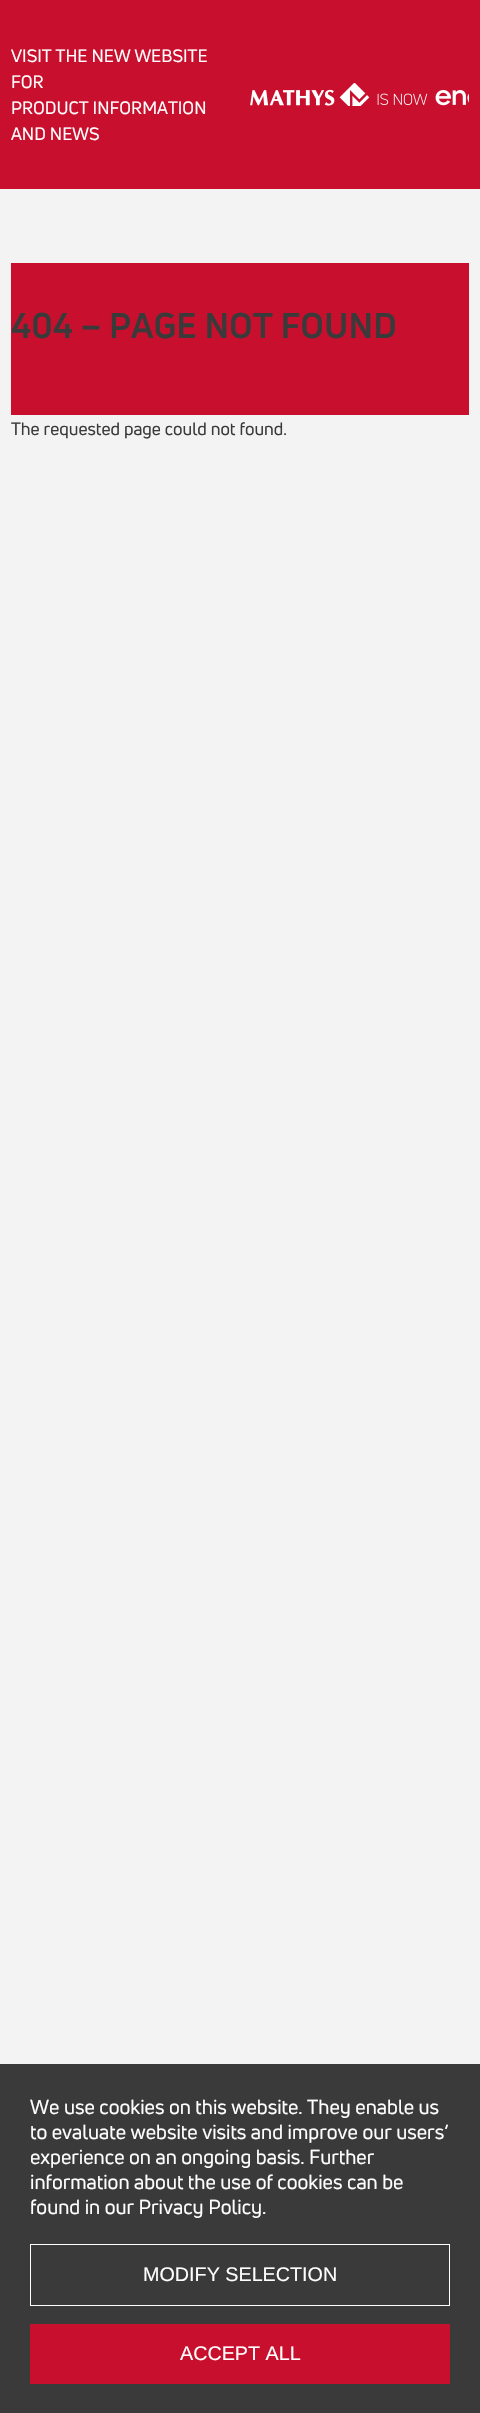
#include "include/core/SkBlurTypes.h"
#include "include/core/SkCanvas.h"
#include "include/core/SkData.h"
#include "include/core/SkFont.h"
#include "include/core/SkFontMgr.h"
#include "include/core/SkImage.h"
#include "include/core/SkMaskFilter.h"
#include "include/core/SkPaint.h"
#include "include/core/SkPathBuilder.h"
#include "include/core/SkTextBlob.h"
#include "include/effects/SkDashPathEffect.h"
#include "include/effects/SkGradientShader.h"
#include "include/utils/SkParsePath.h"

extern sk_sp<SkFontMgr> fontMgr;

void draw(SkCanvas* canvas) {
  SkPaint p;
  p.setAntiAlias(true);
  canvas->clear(SkColorSetRGB(243, 243, 243));
  p.setColor(SkColorSetRGB(200, 16, 46));
  canvas->drawRect(SkRect::MakeLTRB(0, 0, 480, 189), p);
  canvas->drawImageRect(SkImages::DeferredFromEncodedData(SkData::MakeFromFileName("images/1.png")), SkRect::MakeLTRB(250, 83, 469, 106), SkSamplingOptions());
  canvas->drawRect(SkRect::MakeLTRB(11, 263, 469, 415), p);
  p.setColor(SkColorSetRGB(58, 58, 58));
  canvas->drawRect(SkRect::MakeLTRB(0, 2064, 480, 2413), p);
  p.setStyle(SkPaint::kStroke_Style);
  p.setStrokeWidth(1);
  p.setColor(SK_ColorWHITE);
  canvas->drawRect(SkRect::MakeLTRB(30.5f, 2244.5f, 449.5f, 2305.5f), p);
  p.setStyle(SkPaint::kFill_Style);
  p.setColor(SkColorSetRGB(200, 16, 46));
  canvas->drawRect(SkRect::MakeLTRB(30, 2324, 450, 2384), p);
  SkFont font1(fontMgr->matchFamilyStyle("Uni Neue", SkFontStyle::Normal()), 17.5f);
  font1.setSubpixel(true);
  p.setColor(SK_ColorWHITE);
  canvas->drawString("VISIT THE NEW WEBSITE", 11, 62, font1, p);
  canvas->drawString("FOR", 11, 88, font1, p);
  canvas->drawString("PRODUCT INFORMATION", 11, 114, font1, p);
  canvas->drawString("AND NEWS", 11, 140, font1, p);
  SkFont font2(fontMgr->matchFamilyStyle("Uni Neue", SkFontStyle::Bold()), 35);
  font2.setSubpixel(true);
  p.setColor(SkColorSetRGB(58, 58, 58));
  canvas->drawString("404 – PAGE NOT FOUND", 11, 338, font2, p);
  canvas->drawString("The requested page could not found.", 11, 435, font1, p);
  SkFont font3(fontMgr->matchFamilyStyle("Uni Neue", SkFontStyle::Normal()), 20);
  font3.setSubpixel(true);
  p.setColor(SK_ColorWHITE);
  canvas->drawString("We use cookies on this website. They enable us", 30, 2114, font3, p);
  canvas->drawString("to evaluate website visits and improve our users’", 30, 2139, font3, p);
  canvas->drawString("experience on an ongoing basis. Further", 30, 2164, font3, p);
  canvas->drawString("information about the use of cookies can be", 30, 2189, font3, p);
  canvas->drawString("found in our Privacy Policy.", 30, 2214, font3, p);
  SkFont font4(fontMgr->matchFamilyStyle("Liberation Sans", SkFontStyle::Normal()), 19.75f);
  font4.setSubpixel(true);
  canvas->drawString("MODIFY SELECTION", 143, 2281, font4, p);
  canvas->drawString("ACCEPT ALL", 180, 2360, font4, p);
}
